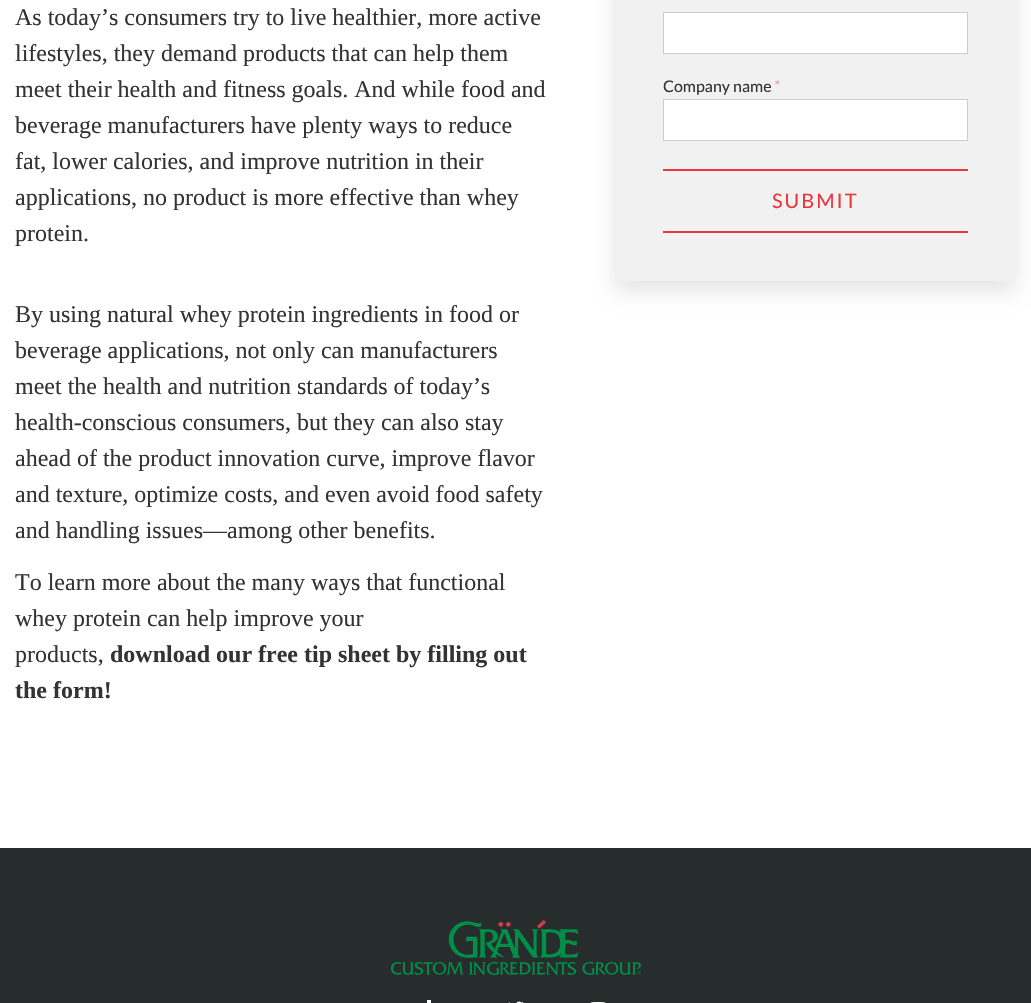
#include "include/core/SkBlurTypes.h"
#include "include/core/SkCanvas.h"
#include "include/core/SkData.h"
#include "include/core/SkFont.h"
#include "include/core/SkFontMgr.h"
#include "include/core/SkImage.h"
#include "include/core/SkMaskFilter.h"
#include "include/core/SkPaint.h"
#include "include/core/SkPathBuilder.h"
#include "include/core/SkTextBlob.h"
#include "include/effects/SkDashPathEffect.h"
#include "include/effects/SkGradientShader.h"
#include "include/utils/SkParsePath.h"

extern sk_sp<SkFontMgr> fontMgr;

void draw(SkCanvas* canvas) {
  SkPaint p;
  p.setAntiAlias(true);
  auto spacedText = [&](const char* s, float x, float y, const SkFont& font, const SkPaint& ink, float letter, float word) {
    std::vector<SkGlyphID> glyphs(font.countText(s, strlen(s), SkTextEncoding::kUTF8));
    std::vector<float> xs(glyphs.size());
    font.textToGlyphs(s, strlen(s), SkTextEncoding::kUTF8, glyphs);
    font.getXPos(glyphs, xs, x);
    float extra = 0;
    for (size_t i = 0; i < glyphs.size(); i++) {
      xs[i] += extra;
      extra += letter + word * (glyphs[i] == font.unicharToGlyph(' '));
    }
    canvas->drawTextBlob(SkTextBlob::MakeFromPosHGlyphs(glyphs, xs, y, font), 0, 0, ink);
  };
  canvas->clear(SK_ColorWHITE);
  p.setColor(SkColorSetARGB(26, 0, 0, 0));
  p.setMaskFilter(SkMaskFilter::MakeBlur(kNormal_SkBlurStyle, 10));
  canvas->drawRoundRect(SkRect::MakeLTRB(615, -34, 1016, 291), 4, 4, p);
  p.setMaskFilter(nullptr);
  p.setColor(SkColorSetRGB(241, 241, 241));
  canvas->drawRoundRect(SkRect::MakeLTRB(615, -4, 1016, 281), 4, 4, p);
  p.setColor(SK_ColorWHITE);
  canvas->drawRect(SkRect::MakeLTRB(663.5f, 12.5f, 967.5f, 53.5f), p);
  p.setStyle(SkPaint::kStroke_Style);
  p.setStrokeWidth(1);
  p.setColor(SkColorSetRGB(204, 204, 204));
  canvas->drawRect(SkRect::MakeLTRB(663.5f, 12.5f, 967.5f, 53.5f), p);
  p.setStyle(SkPaint::kFill_Style);
  p.setColor(SK_ColorWHITE);
  canvas->drawRect(SkRect::MakeLTRB(663.5f, 99.5f, 967.5f, 140.5f), p);
  p.setStyle(SkPaint::kStroke_Style);
  p.setColor(SkColorSetRGB(204, 204, 204));
  canvas->drawRect(SkRect::MakeLTRB(663.5f, 99.5f, 967.5f, 140.5f), p);
  p.setStyle(SkPaint::kFill_Style);
  p.setColor(SkColorSetRGB(237, 53, 58));
  canvas->drawRect(SkRect::MakeLTRB(663, 169, 968, 171), p);
  canvas->drawRect(SkRect::MakeLTRB(663, 231, 968, 233), p);
  p.setColor(SkColorSetRGB(39, 45, 45));
  canvas->drawRect(SkRect::MakeLTRB(0, 848, 1031, 1003), p);
  canvas->drawImageRect(SkImages::DeferredFromEncodedData(SkData::MakeFromFileName("images/1.png")), SkRect::MakeLTRB(391, 920, 641, 975), SkSamplingOptions());
  p.setColor(SK_ColorWHITE);
  canvas->drawRect(SkRect::MakeLTRB(427, 1000, 431, 1003), p);
  canvas->drawImageRect(SkImages::DeferredFromEncodedData(SkData::MakeFromFileName("images/2.png")), SkRect::MakeLTRB(508, 1001, 524, 1003), SkSamplingOptions());
  canvas->drawImageRect(SkImages::DeferredFromEncodedData(SkData::MakeFromFileName("images/3.png")), SkRect::MakeLTRB(590, 1002, 606, 1003), SkSamplingOptions());
  SkFont font1(fontMgr->matchFamilyStyle("Liberation Serif", SkFontStyle::Normal()), 24);
  font1.setSubpixel(true);
  p.setColor(SkColorSetRGB(51, 51, 51));
  canvas->drawString("As today’s consumers try to live healthier, more active", 15, 25, font1, p);
  canvas->drawString("lifestyles, they demand products that can help them", 15, 61, font1, p);
  canvas->drawString("meet their health and fitness goals. And while food and", 15, 97, font1, p);
  canvas->drawString("beverage manufacturers have plenty ways to reduce", 15, 133, font1, p);
  canvas->drawString("fat, lower calories, and improve nutrition in their", 15, 169, font1, p);
  canvas->drawString("applications, no product is more effective than whey", 15, 205, font1, p);
  canvas->drawString("protein.", 15, 241, font1, p);
  canvas->drawString("By using natural whey protein ingredients in food or", 15, 322, font1, p);
  canvas->drawString("beverage applications, not only can manufacturers", 15, 358, font1, p);
  canvas->drawString("meet the health and nutrition standards of today’s", 15, 394, font1, p);
  canvas->drawString("health-conscious consumers, but they can also stay", 15, 430, font1, p);
  canvas->drawString("ahead of the product innovation curve, improve flavor", 15, 466, font1, p);
  canvas->drawString("and texture, optimize costs, and even avoid food safety", 15, 502, font1, p);
  canvas->drawString("and handling issues—among other benefits.", 15, 538, font1, p);
  canvas->drawString("To learn more about the many ways that functional", 15, 590, font1, p);
  canvas->drawString("whey protein can help improve your", 15, 626, font1, p);
  canvas->drawString("products,", 15, 662, font1, p);
  SkFont font2(fontMgr->matchFamilyStyle("Liberation Serif", SkFontStyle::Bold()), 24);
  font2.setSubpixel(true);
  canvas->drawString("download our free tip sheet by filling out", 110, 662, font2, p);
  canvas->drawString("the form!", 15, 698, font2, p);
  SkFont font3(fontMgr->matchFamilyStyle("Lato", SkFontStyle::Normal()), 16);
  font3.setSubpixel(true);
  canvas->drawString("Company name", 663, 92, font3, p);
  SkFont font4(fontMgr->matchFamilyStyle("Lato", SkFontStyle(300, SkFontStyle::kNormal_Width, SkFontStyle::kUpright_Slant)), 16);
  font4.setSubpixel(true);
  p.setColor(SkColorSetRGB(255, 121, 121));
  canvas->drawString("*", 774, 92, font4, p);
  SkFont font5(fontMgr->matchFamilyStyle("Lato", SkFontStyle::Normal()), 20);
  font5.setSubpixel(true);
  p.setColor(SkColorSetRGB(237, 53, 58));
  spacedText("SUBMIT", 772, 208, font5, p, 2, 0);
}
